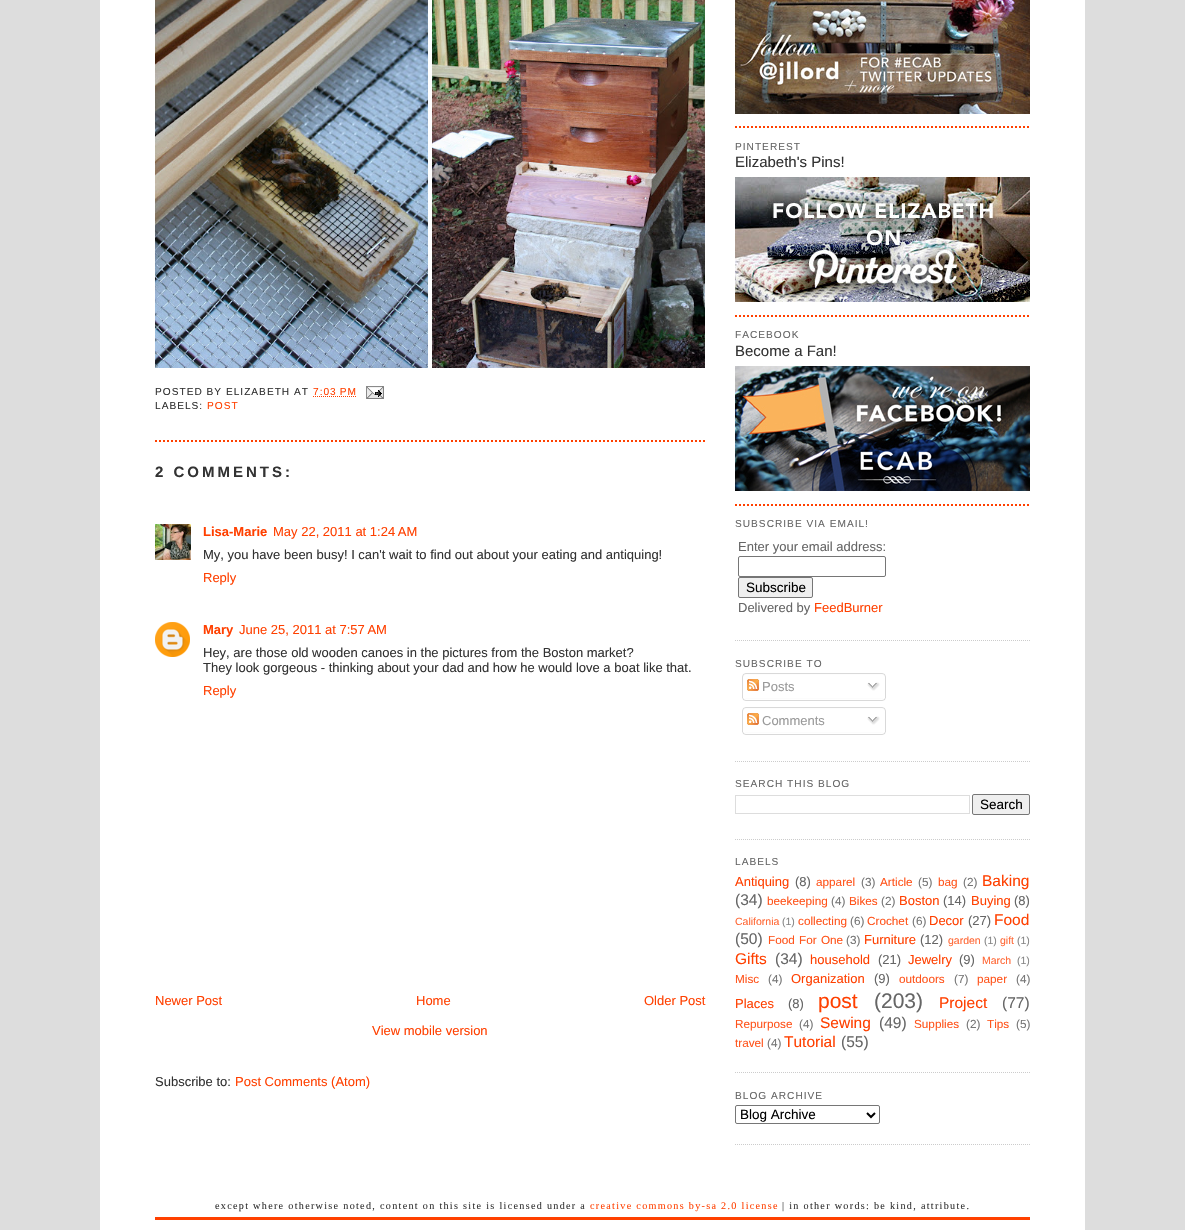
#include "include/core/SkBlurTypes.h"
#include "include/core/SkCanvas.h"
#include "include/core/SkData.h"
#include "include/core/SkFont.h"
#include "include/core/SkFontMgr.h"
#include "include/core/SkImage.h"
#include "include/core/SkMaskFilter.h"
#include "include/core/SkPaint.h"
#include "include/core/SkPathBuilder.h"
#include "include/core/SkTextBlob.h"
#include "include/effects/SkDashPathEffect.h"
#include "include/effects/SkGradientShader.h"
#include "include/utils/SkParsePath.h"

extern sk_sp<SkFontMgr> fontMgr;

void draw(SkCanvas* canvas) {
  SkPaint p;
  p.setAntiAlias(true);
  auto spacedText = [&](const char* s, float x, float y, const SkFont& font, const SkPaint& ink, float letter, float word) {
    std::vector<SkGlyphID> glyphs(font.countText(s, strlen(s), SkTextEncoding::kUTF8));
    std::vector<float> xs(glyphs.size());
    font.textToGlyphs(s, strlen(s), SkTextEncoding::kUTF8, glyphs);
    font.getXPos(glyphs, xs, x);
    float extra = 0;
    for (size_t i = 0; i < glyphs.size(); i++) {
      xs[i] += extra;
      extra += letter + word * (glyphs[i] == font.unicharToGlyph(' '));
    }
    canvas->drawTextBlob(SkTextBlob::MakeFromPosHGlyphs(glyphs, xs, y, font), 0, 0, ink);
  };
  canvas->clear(SkColorSetRGB(221, 221, 221));
  p.setColor(SK_ColorWHITE);
  canvas->drawRect(SkRect::MakeLTRB(100, 0, 1085, 1230), p);
  p.setStyle(SkPaint::kStroke_Style);
  p.setStrokeWidth(2);
  p.setColor(SkColorSetRGB(255, 64, 0));
  p.setPathEffect(SkDashPathEffect::Make({{2, 2}}, 0));
  canvas->drawPath(SkPathBuilder().moveTo(155, 441).lineTo(705, 441).detach(), p);
  p.setPathEffect(nullptr);
  canvas->drawImageRect(SkImages::DeferredFromEncodedData(SkData::MakeFromFileName("images/1.png")), SkRect::MakeLTRB(155, 0, 428, 368), SkSamplingOptions());
  canvas->drawImageRect(SkImages::DeferredFromEncodedData(SkData::MakeFromFileName("images/2.png")), SkRect::MakeLTRB(432, 0, 705, 368), SkSamplingOptions());
  p.setStrokeWidth(1);
  p.setPathEffect(SkDashPathEffect::Make({{1, 1}}, 0));
  canvas->drawPath(SkPathBuilder().moveTo(313, 396.5f).lineTo(357, 396.5f).detach(), p);
  p.setPathEffect(nullptr);
  canvas->drawImageRect(SkImages::DeferredFromEncodedData(SkData::MakeFromFileName("images/3.png")), SkRect::MakeLTRB(366, 386, 384, 399), SkSamplingOptions());
  canvas->drawImageRect(SkImages::DeferredFromEncodedData(SkData::MakeFromFileName("images/4.png")), SkRect::MakeLTRB(155, 524, 191, 560), SkSamplingOptions());
  canvas->drawImageRect(SkImages::DeferredFromEncodedData(SkData::MakeFromFileName("images/5.png")), SkRect::MakeLTRB(155, 622, 190, 657), SkSamplingOptions());
  p.setStrokeWidth(2);
  p.setPathEffect(SkDashPathEffect::Make({{2, 2}}, 0));
  canvas->drawPath(SkPathBuilder().moveTo(735, 127).lineTo(1030, 127).detach(), p);
  p.setPathEffect(nullptr);
  canvas->drawImageRect(SkImages::DeferredFromEncodedData(SkData::MakeFromFileName("images/6.png")), SkRect::MakeLTRB(735, 0, 1030, 114), SkSamplingOptions());
  p.setPathEffect(SkDashPathEffect::Make({{2, 2}}, 0));
  canvas->drawPath(SkPathBuilder().moveTo(735, 316).lineTo(1030, 316).detach(), p);
  p.setPathEffect(nullptr);
  canvas->drawImageRect(SkImages::DeferredFromEncodedData(SkData::MakeFromFileName("images/7.png")), SkRect::MakeLTRB(735, 177, 1030, 302), SkSamplingOptions());
  p.setPathEffect(SkDashPathEffect::Make({{2, 2}}, 0));
  canvas->drawPath(SkPathBuilder().moveTo(735, 505).lineTo(1030, 505).detach(), p);
  p.setPathEffect(nullptr);
  canvas->drawImageRect(SkImages::DeferredFromEncodedData(SkData::MakeFromFileName("images/8.png")), SkRect::MakeLTRB(735, 366, 1030, 491), SkSamplingOptions());
  p.setStrokeWidth(1);
  p.setColor(SkColorSetRGB(204, 204, 204));
  p.setPathEffect(SkDashPathEffect::Make({{1, 1}}, 0));
  canvas->drawPath(SkPathBuilder().moveTo(735, 640.5f).lineTo(1030, 640.5f).detach(), p);
  p.setPathEffect(nullptr);
  p.setColor(SkColorSetRGB(118, 118, 118));
  canvas->drawRoundRect(SkRect::MakeLTRB(738.5f, 556.5f, 885.5f, 576.5f), 1.5f, 1.5f, p);
  p.setStyle(SkPaint::kFill_Style);
  p.setColor(SkColorSetRGB(239, 239, 239));
  canvas->drawRoundRect(SkRect::MakeLTRB(738.5f, 577.5f, 812.5f, 597.5f), 1.5f, 1.5f, p);
  p.setStyle(SkPaint::kStroke_Style);
  p.setColor(SkColorSetRGB(118, 118, 118));
  canvas->drawRoundRect(SkRect::MakeLTRB(738.5f, 577.5f, 812.5f, 597.5f), 1.5f, 1.5f, p);
  p.setColor(SkColorSetRGB(204, 204, 204));
  p.setPathEffect(SkDashPathEffect::Make({{1, 1}}, 0));
  canvas->drawPath(SkPathBuilder().moveTo(735, 761.5f).lineTo(1030, 761.5f).detach(), p);
  p.setPathEffect(nullptr);
  canvas->drawImageRect(SkImages::DeferredFromEncodedData(SkData::MakeFromFileName("images/9.png")), SkRect::MakeLTRB(742, 673, 886, 698), SkSamplingOptions());
  canvas->drawImageRect(SkImages::DeferredFromEncodedData(SkData::MakeFromFileName("images/10.png")), SkRect::MakeLTRB(747, 679, 759, 691), SkSamplingOptions());
  canvas->drawImageRect(SkImages::DeferredFromEncodedData(SkData::MakeFromFileName("images/11.png")), SkRect::MakeLTRB(867, 682, 880, 691), SkSamplingOptions());
  canvas->drawImageRect(SkImages::DeferredFromEncodedData(SkData::MakeFromFileName("images/12.png")), SkRect::MakeLTRB(742, 698, 886, 701), SkSamplingOptions());
  canvas->drawImageRect(SkImages::DeferredFromEncodedData(SkData::MakeFromFileName("images/9.png")), SkRect::MakeLTRB(742, 707, 886, 732), SkSamplingOptions());
  canvas->drawImageRect(SkImages::DeferredFromEncodedData(SkData::MakeFromFileName("images/10.png")), SkRect::MakeLTRB(747, 713, 759, 725), SkSamplingOptions());
  canvas->drawImageRect(SkImages::DeferredFromEncodedData(SkData::MakeFromFileName("images/11.png")), SkRect::MakeLTRB(867, 716, 880, 725), SkSamplingOptions());
  canvas->drawImageRect(SkImages::DeferredFromEncodedData(SkData::MakeFromFileName("images/12.png")), SkRect::MakeLTRB(742, 732, 886, 735), SkSamplingOptions());
  p.setPathEffect(SkDashPathEffect::Make({{1, 1}}, 0));
  canvas->drawPath(SkPathBuilder().moveTo(735, 839.5f).lineTo(1030, 839.5f).detach(), p);
  p.setPathEffect(nullptr);
  p.setColor(SkColorSetRGB(221, 221, 221));
  canvas->drawRect(SkRect::MakeLTRB(735.5f, 795.5f, 969.5f, 813.5f), p);
  p.setStyle(SkPaint::kFill_Style);
  p.setColor(SkColorSetRGB(239, 239, 239));
  canvas->drawRoundRect(SkRect::MakeLTRB(972.5f, 794.5f, 1029.5f, 814.5f), 1.5f, 1.5f, p);
  p.setStyle(SkPaint::kStroke_Style);
  p.setColor(SkColorSetRGB(118, 118, 118));
  canvas->drawRoundRect(SkRect::MakeLTRB(972.5f, 794.5f, 1029.5f, 814.5f), 1.5f, 1.5f, p);
  p.setColor(SkColorSetRGB(204, 204, 204));
  p.setPathEffect(SkDashPathEffect::Make({{1, 1}}, 0));
  canvas->drawPath(SkPathBuilder().moveTo(735, 1072.5f).lineTo(1030, 1072.5f).detach(), p);
  p.setPathEffect(nullptr);
  p.setPathEffect(SkDashPathEffect::Make({{1, 1}}, 0));
  canvas->drawPath(SkPathBuilder().moveTo(735, 1144.5f).lineTo(1030, 1144.5f).detach(), p);
  p.setPathEffect(nullptr);
  p.setColor(SkColorSetRGB(118, 118, 118));
  canvas->drawRoundRect(SkRect::MakeLTRB(735.5f, 1105.5f, 879.5f, 1123.5f), 1.5f, 1.5f, p);
  p.setStrokeWidth(2);
  p.setColor(SK_ColorBLACK);
  canvas->drawPath(SkPathBuilder().moveTo(867, 1113).lineTo(871, 1117).lineTo(875, 1113).detach(), p);
  p.setStyle(SkPaint::kFill_Style);
  p.setColor(SkColorSetRGB(255, 64, 0));
  canvas->drawRect(SkRect::MakeLTRB(155, 1217, 1030, 1220), p);
  SkFont font1(fontMgr->matchFamilyStyle("Liberation Sans", SkFontStyle::Normal()), 10.15f);
  font1.setSubpixel(true);
  p.setColor(SkColorSetRGB(51, 51, 51));
  spacedText("POSTED BY ELIZABETH AT", 155, 395, font1, p, 1, 0);
  p.setColor(SkColorSetRGB(255, 64, 0));
  spacedText("7:03 PM", 313, 395, font1, p, 1, 0);
  p.setColor(SkColorSetRGB(51, 51, 51));
  spacedText("LABELS:", 155, 409, font1, p, 1, 0);
  p.setColor(SkColorSetRGB(255, 64, 0));
  spacedText("POST", 207, 409, font1, p, 1, 0);
  SkFont font2(fontMgr->matchFamilyStyle("Liberation Sans", SkFontStyle::Bold()), 15);
  font2.setSubpixel(true);
  p.setColor(SkColorSetRGB(51, 51, 51));
  spacedText("2 COMMENTS:", 155, 477, font2, p, 3, 0);
  SkFont font3(fontMgr->matchFamilyStyle("Liberation Sans", SkFontStyle::Bold()), 13);
  font3.setSubpixel(true);
  p.setColor(SkColorSetRGB(255, 64, 0));
  canvas->drawString("Lisa-Marie", 203, 536, font3, p);
  SkFont font4(fontMgr->matchFamilyStyle("Liberation Sans", SkFontStyle::Normal()), 13);
  font4.setSubpixel(true);
  canvas->drawString("May 22, 2011 at 1:24 AM", 273, 536, font4, p);
  p.setColor(SkColorSetRGB(51, 51, 51));
  canvas->drawString("My, you have been busy! I can't wait to find out about your eating and antiquing!", 203, 559, font4, p);
  p.setColor(SkColorSetRGB(255, 64, 0));
  canvas->drawString("Reply", 203, 582, font4, p);
  canvas->drawString("Mary", 203, 634, font3, p);
  canvas->drawString("June 25, 2011 at 7:57 AM", 239, 634, font4, p);
  p.setColor(SkColorSetRGB(51, 51, 51));
  canvas->drawString("Hey, are those old wooden canoes in the pictures from the Boston market?", 203, 657, font4, p);
  canvas->drawString("They look gorgeous - thinking about your dad and how he would love a boat like that.", 203, 672, font4, p);
  p.setColor(SkColorSetRGB(255, 64, 0));
  canvas->drawString("Reply", 203, 695, font4, p);
  canvas->drawString("Newer Post", 155, 1005, font4, p);
  canvas->drawString("Home", 416, 1005, font4, p);
  canvas->drawString("Older Post", 644, 1005, font4, p);
  canvas->drawString("View mobile version", 372, 1035, font4, p);
  p.setColor(SkColorSetRGB(51, 51, 51));
  canvas->drawString("Subscribe to:", 155, 1086, font4, p);
  p.setColor(SkColorSetRGB(255, 64, 0));
  canvas->drawString("Post Comments (Atom)", 235, 1086, font4, p);
  p.setColor(SkColorSetRGB(102, 102, 102));
  spacedText("PINTEREST", 735, 150, font1, p, 1, 0);
  SkFont font5(fontMgr->matchFamilyStyle("Liberation Sans", SkFontStyle::Normal()), 15);
  font5.setSubpixel(true);
  p.setColor(SkColorSetRGB(51, 51, 51));
  canvas->drawString("Elizabeth's Pins!", 735, 167, font5, p);
  p.setColor(SkColorSetRGB(102, 102, 102));
  spacedText("FACEBOOK", 735, 338, font1, p, 1, 0);
  p.setColor(SkColorSetRGB(51, 51, 51));
  canvas->drawString("Become a Fan!", 735, 356, font5, p);
  p.setColor(SkColorSetRGB(102, 102, 102));
  spacedText("SUBSCRIBE VIA EMAIL!", 735, 527, font1, p, 1, 0);
  canvas->drawString("Enter your email address:", 738, 551, font4, p);
  SkFont font6(fontMgr->matchFamilyStyle("Liberation Sans", SkFontStyle::Normal()), 13.5f);
  font6.setSubpixel(true);
  p.setColor(SK_ColorBLACK);
  canvas->drawString("Subscribe", 746, 592, font6, p);
  p.setColor(SkColorSetRGB(102, 102, 102));
  canvas->drawString("Delivered by", 738, 612, font4, p);
  p.setColor(SkColorSetRGB(255, 64, 0));
  canvas->drawString("FeedBurner", 814, 612, font4, p);
  p.setColor(SkColorSetRGB(102, 102, 102));
  spacedText("SUBSCRIBE TO", 735, 667, font1, p, 1, 0);
  p.setColor(SkColorSetRGB(153, 153, 153));
  canvas->drawString("Posts", 762, 691, font4, p);
  canvas->drawString("Comments", 762, 725, font4, p);
  p.setColor(SkColorSetRGB(102, 102, 102));
  spacedText("SEARCH THIS BLOG", 735, 787, font1, p, 1, 0);
  p.setColor(SK_ColorBLACK);
  canvas->drawString("Search", 980, 809, font6, p);
  p.setColor(SkColorSetRGB(102, 102, 102));
  spacedText("LABELS", 735, 865, font1, p, 1, 0);
  p.setColor(SkColorSetRGB(255, 64, 0));
  canvas->drawString("Antiquing", 735, 886, font4, p);
  p.setColor(SkColorSetRGB(102, 102, 102));
  canvas->drawString("(8)", 795, 886, font4, p);
  SkFont font7(fontMgr->matchFamilyStyle("Liberation Sans", SkFontStyle::Normal()), 11.75f);
  font7.setSubpixel(true);
  p.setColor(SkColorSetRGB(255, 83, 26));
  canvas->drawString("apparel", 816, 886, font7, p);
  p.setColor(SkColorSetRGB(117, 117, 117));
  canvas->drawString("(3)", 861, 886, font7, p);
  p.setColor(SkColorSetRGB(255, 83, 26));
  canvas->drawString("Article", 880, 886, font7, p);
  p.setColor(SkColorSetRGB(117, 117, 117));
  canvas->drawString("(5)", 918, 886, font7, p);
  p.setColor(SkColorSetRGB(255, 83, 26));
  canvas->drawString("bag", 938, 886, font7, p);
  p.setColor(SkColorSetRGB(117, 117, 117));
  canvas->drawString("(2)", 963, 886, font7, p);
  SkFont font8(fontMgr->matchFamilyStyle("Liberation Sans", SkFontStyle::Normal()), 15.5f);
  font8.setSubpixel(true);
  p.setColor(SkColorSetRGB(255, 64, 0));
  canvas->drawString("Baking", 982, 886, font8, p);
  p.setColor(SkColorSetRGB(102, 102, 102));
  canvas->drawString("(34)", 735, 905, font8, p);
  p.setColor(SkColorSetRGB(255, 83, 26));
  canvas->drawString("beekeeping", 767, 905, font7, p);
  p.setColor(SkColorSetRGB(117, 117, 117));
  canvas->drawString("(4)", 831, 905, font7, p);
  p.setColor(SkColorSetRGB(255, 83, 26));
  canvas->drawString("Bikes", 849, 905, font7, p);
  p.setColor(SkColorSetRGB(117, 117, 117));
  canvas->drawString("(2)", 881, 905, font7, p);
  p.setColor(SkColorSetRGB(255, 64, 0));
  canvas->drawString("Boston", 899, 905, font4, p);
  p.setColor(SkColorSetRGB(102, 102, 102));
  canvas->drawString("(14)", 943, 905, font4, p);
  p.setColor(SkColorSetRGB(255, 64, 0));
  canvas->drawString("Buying", 971, 905, font4, p);
  p.setColor(SkColorSetRGB(102, 102, 102));
  canvas->drawString("(8)", 1014, 905, font4, p);
  SkFont font9(fontMgr->matchFamilyStyle("Liberation Sans", SkFontStyle::Normal()), 10.5f);
  font9.setSubpixel(true);
  p.setColor(SkColorSetRGB(255, 102, 51));
  canvas->drawString("California", 735, 925, font9, p);
  p.setColor(SkColorSetRGB(133, 133, 133));
  canvas->drawString("(1)", 782, 925, font9, p);
  p.setColor(SkColorSetRGB(255, 83, 26));
  canvas->drawString("collecting", 798, 925, font7, p);
  p.setColor(SkColorSetRGB(117, 117, 117));
  canvas->drawString("(6)", 850, 925, font7, p);
  p.setColor(SkColorSetRGB(255, 83, 26));
  canvas->drawString("Crochet", 867, 925, font7, p);
  p.setColor(SkColorSetRGB(117, 117, 117));
  canvas->drawString("(6)", 912, 925, font7, p);
  p.setColor(SkColorSetRGB(255, 64, 0));
  canvas->drawString("Decor", 929, 925, font4, p);
  p.setColor(SkColorSetRGB(102, 102, 102));
  canvas->drawString("(27)", 968, 925, font4, p);
  p.setColor(SkColorSetRGB(255, 64, 0));
  canvas->drawString("Food", 994, 925, font8, p);
  p.setColor(SkColorSetRGB(102, 102, 102));
  canvas->drawString("(50)", 735, 944, font8, p);
  p.setColor(SkColorSetRGB(255, 83, 26));
  spacedText("Food For One", 768, 944, font7, p, 0, 1);
  p.setColor(SkColorSetRGB(117, 117, 117));
  canvas->drawString("(3)", 846, 944, font7, p);
  p.setColor(SkColorSetRGB(255, 64, 0));
  canvas->drawString("Furniture", 864, 944, font4, p);
  p.setColor(SkColorSetRGB(102, 102, 102));
  canvas->drawString("(12)", 920, 944, font4, p);
  p.setColor(SkColorSetRGB(255, 102, 51));
  canvas->drawString("garden", 948, 944, font9, p);
  p.setColor(SkColorSetRGB(133, 133, 133));
  canvas->drawString("(1)", 984, 944, font9, p);
  p.setColor(SkColorSetRGB(255, 102, 51));
  canvas->drawString("gift", 1000, 944, font9, p);
  p.setColor(SkColorSetRGB(133, 133, 133));
  canvas->drawString("(1)", 1017, 944, font9, p);
  p.setColor(SkColorSetRGB(255, 64, 0));
  canvas->drawString("Gifts", 735, 964, font8, p);
  p.setColor(SkColorSetRGB(102, 102, 102));
  canvas->drawString("(34)", 775, 964, font8, p);
  p.setColor(SkColorSetRGB(255, 64, 0));
  canvas->drawString("household", 810, 964, font4, p);
  p.setColor(SkColorSetRGB(102, 102, 102));
  canvas->drawString("(21)", 878, 964, font4, p);
  p.setColor(SkColorSetRGB(255, 64, 0));
  canvas->drawString("Jewelry", 908, 964, font4, p);
  p.setColor(SkColorSetRGB(102, 102, 102));
  canvas->drawString("(9)", 959, 964, font4, p);
  p.setColor(SkColorSetRGB(255, 102, 51));
  canvas->drawString("March", 982, 964, font9, p);
  p.setColor(SkColorSetRGB(133, 133, 133));
  canvas->drawString("(1)", 1017, 964, font9, p);
  p.setColor(SkColorSetRGB(255, 83, 26));
  canvas->drawString("Misc", 735, 983, font7, p);
  p.setColor(SkColorSetRGB(117, 117, 117));
  canvas->drawString("(4)", 768, 983, font7, p);
  p.setColor(SkColorSetRGB(255, 64, 0));
  canvas->drawString("Organization", 791, 983, font4, p);
  p.setColor(SkColorSetRGB(102, 102, 102));
  canvas->drawString("(9)", 874, 983, font4, p);
  p.setColor(SkColorSetRGB(255, 83, 26));
  canvas->drawString("outdoors", 899, 983, font7, p);
  p.setColor(SkColorSetRGB(117, 117, 117));
  canvas->drawString("(7)", 954, 983, font7, p);
  p.setColor(SkColorSetRGB(255, 83, 26));
  canvas->drawString("paper", 977, 983, font7, p);
  p.setColor(SkColorSetRGB(117, 117, 117));
  canvas->drawString("(4)", 1016, 983, font7, p);
  p.setColor(SkColorSetRGB(255, 64, 0));
  canvas->drawString("Places", 735, 1008, font4, p);
  p.setColor(SkColorSetRGB(102, 102, 102));
  canvas->drawString("(8)", 788, 1008, font4, p);
  SkFont font10(fontMgr->matchFamilyStyle("Liberation Sans", SkFontStyle::Normal()), 21);
  font10.setSubpixel(true);
  p.setColor(SkColorSetRGB(255, 64, 0));
  canvas->drawString("post", 818, 1008, font10, p);
  p.setColor(SkColorSetRGB(102, 102, 102));
  canvas->drawString("(203)", 874, 1008, font10, p);
  p.setColor(SkColorSetRGB(255, 64, 0));
  canvas->drawString("Project", 939, 1008, font8, p);
  p.setColor(SkColorSetRGB(102, 102, 102));
  canvas->drawString("(77)", 1002, 1008, font8, p);
  p.setColor(SkColorSetRGB(255, 83, 26));
  canvas->drawString("Repurpose", 735, 1028, font7, p);
  p.setColor(SkColorSetRGB(117, 117, 117));
  canvas->drawString("(4)", 799, 1028, font7, p);
  p.setColor(SkColorSetRGB(255, 64, 0));
  canvas->drawString("Sewing", 820, 1028, font8, p);
  p.setColor(SkColorSetRGB(102, 102, 102));
  canvas->drawString("(49)", 879, 1028, font8, p);
  p.setColor(SkColorSetRGB(255, 83, 26));
  canvas->drawString("Supplies", 914, 1028, font7, p);
  p.setColor(SkColorSetRGB(117, 117, 117));
  canvas->drawString("(2)", 966, 1028, font7, p);
  p.setColor(SkColorSetRGB(255, 83, 26));
  canvas->drawString("Tips", 987, 1028, font7, p);
  p.setColor(SkColorSetRGB(117, 117, 117));
  canvas->drawString("(5)", 1016, 1028, font7, p);
  p.setColor(SkColorSetRGB(255, 83, 26));
  canvas->drawString("travel", 735, 1047, font7, p);
  p.setColor(SkColorSetRGB(117, 117, 117));
  canvas->drawString("(4)", 767, 1047, font7, p);
  p.setColor(SkColorSetRGB(255, 64, 0));
  canvas->drawString("Tutorial", 784, 1047, font8, p);
  p.setColor(SkColorSetRGB(102, 102, 102));
  canvas->drawString("(55)", 841, 1047, font8, p);
  spacedText("BLOG ARCHIVE", 735, 1099, font1, p, 1, 0);
  p.setColor(SK_ColorBLACK);
  canvas->drawString("Blog Archive", 740, 1119, font6, p);
  SkFont font11(fontMgr->matchFamilyStyle("Liberation Serif", SkFontStyle::Normal()), 10.15f);
  font11.setSubpixel(true);
  p.setColor(SkColorSetRGB(51, 51, 51));
  spacedText("except where otherwise noted, content on this site is licensed under a", 215, 1209, font11, p, 1.3f, 0);
  p.setColor(SkColorSetRGB(255, 64, 0));
  spacedText("creative commons by-sa 2.0 license", 590, 1209, font11, p, 1.3f, 0);
  p.setColor(SkColorSetRGB(51, 51, 51));
  spacedText("| in other words: be kind, attribute.", 782, 1209, font11, p, 1.3f, 0);
}
